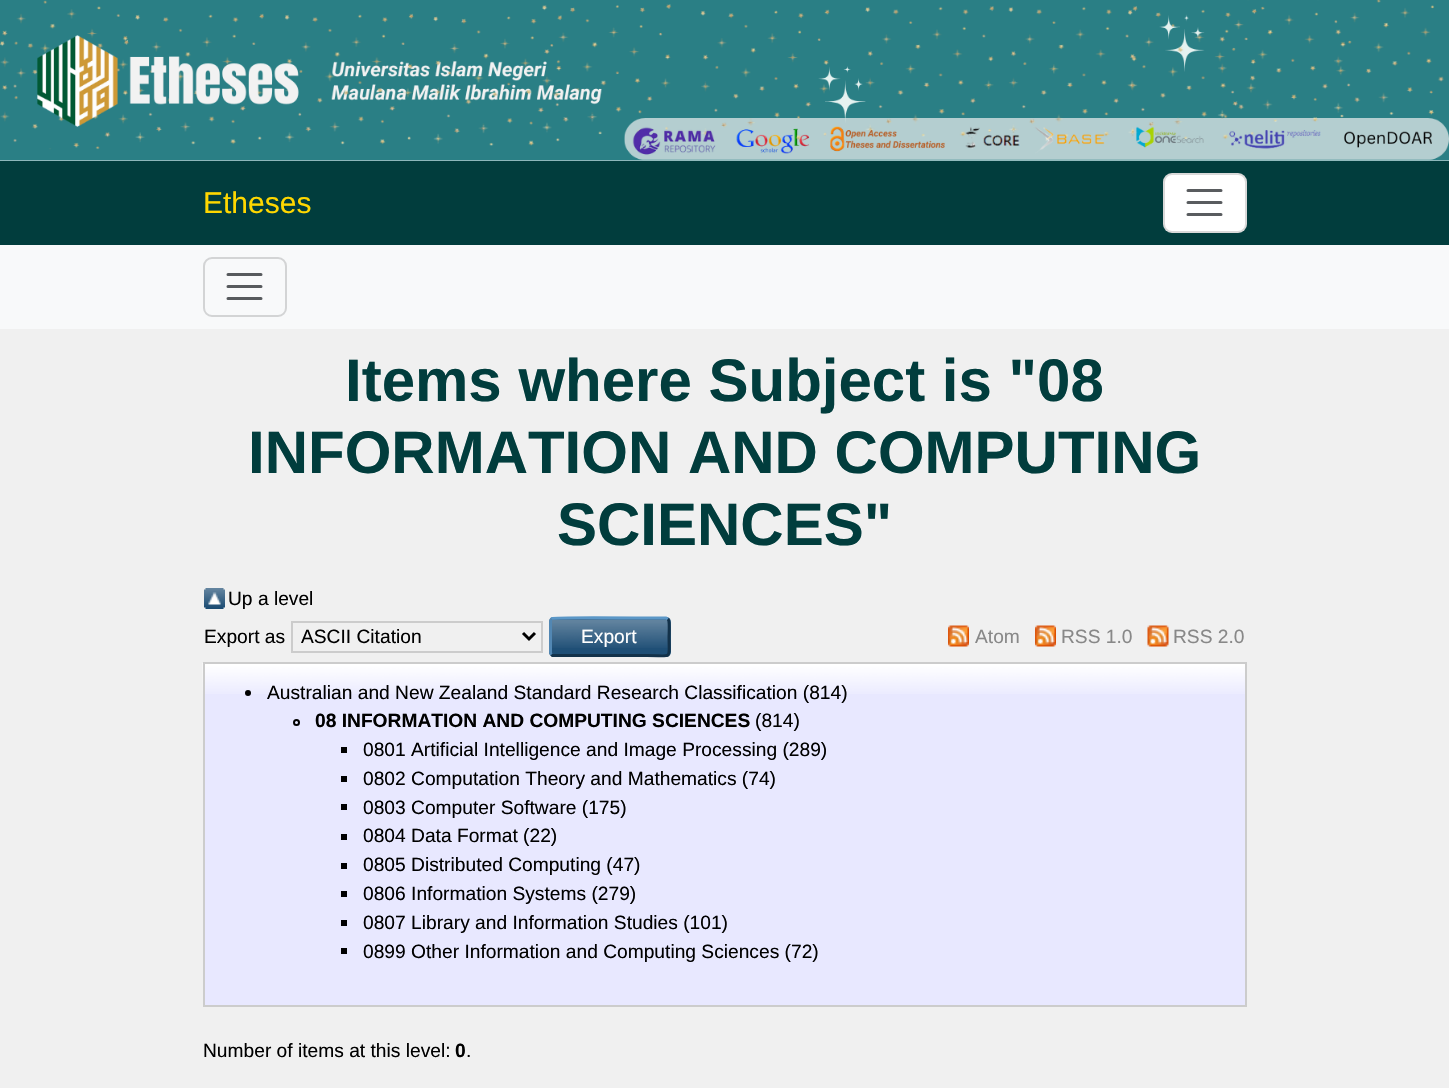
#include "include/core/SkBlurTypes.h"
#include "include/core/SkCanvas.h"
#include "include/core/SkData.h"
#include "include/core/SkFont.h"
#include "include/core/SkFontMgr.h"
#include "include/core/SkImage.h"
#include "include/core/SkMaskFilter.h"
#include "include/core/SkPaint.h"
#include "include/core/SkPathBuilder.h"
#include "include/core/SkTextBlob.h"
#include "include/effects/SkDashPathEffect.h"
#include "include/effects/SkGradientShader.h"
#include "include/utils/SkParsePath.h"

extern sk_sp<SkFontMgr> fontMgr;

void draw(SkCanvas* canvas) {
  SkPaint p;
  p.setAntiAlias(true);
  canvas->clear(SkColorSetRGB(240, 240, 240));
  canvas->drawImageRect(SkImages::DeferredFromEncodedData(SkData::MakeFromFileName("images/1.png")), SkRect::MakeLTRB(0, 0, 1449, 161), SkSamplingOptions());
  p.setColor(SkColorSetRGB(1, 61, 61));
  canvas->drawRect(SkRect::MakeLTRB(0, 161, 1449, 245), p);
  p.setColor(SK_ColorWHITE);
  canvas->drawRoundRect(SkRect::MakeLTRB(1163, 173, 1247, 233), 9, 9, p);
  p.setStyle(SkPaint::kStroke_Style);
  p.setStrokeWidth(2);
  p.setColor(SkColorSetARGB(38, 0, 0, 0));
  canvas->drawRoundRect(SkRect::MakeLTRB(1164, 174, 1246, 232), 8, 8, p);
  p.setStrokeWidth(3);
  p.setStrokeCap(SkPaint::kRound_Cap);
  p.setColor(SkColorSetRGB(89, 92, 95));
  canvas->drawPath(SkPathBuilder().moveTo(1188, 190.5f).lineTo(1221, 190.5f).moveTo(1188, 202.5f).lineTo(1221, 202.5f).moveTo(1188, 214.5f).lineTo(1221, 214.5f).detach(), p);
  p.setStyle(SkPaint::kFill_Style);
  p.setColor(SkColorSetRGB(248, 249, 250));
  canvas->drawRect(SkRect::MakeLTRB(0, 245, 1449, 329), p);
  p.setStyle(SkPaint::kStroke_Style);
  p.setStrokeWidth(2);
  p.setStrokeCap(SkPaint::kButt_Cap);
  p.setColor(SkColorSetRGB(211, 212, 213));
  canvas->drawRoundRect(SkRect::MakeLTRB(204, 258, 286, 316), 8, 8, p);
  p.setStrokeWidth(3);
  p.setStrokeCap(SkPaint::kRound_Cap);
  p.setColor(SkColorSetRGB(87, 90, 93));
  canvas->drawPath(SkPathBuilder().moveTo(228, 274.5f).lineTo(261, 274.5f).moveTo(228, 286.5f).lineTo(261, 286.5f).moveTo(228, 298.5f).lineTo(261, 298.5f).detach(), p);
  canvas->drawImageRect(SkImages::DeferredFromEncodedData(SkData::MakeFromFileName("images/2.png")), SkRect::MakeLTRB(204, 588, 225, 609), SkSamplingOptions());
  p.setStrokeWidth(2);
  p.setStrokeCap(SkPaint::kButt_Cap);
  p.setColor(SkColorSetRGB(204, 204, 204));
  canvas->drawRect(SkRect::MakeLTRB(292, 622, 542, 652), p);
  p.setStrokeWidth(3);
  p.setColor(SK_ColorBLACK);
  canvas->drawPath(SkPathBuilder().moveTo(523, 633).lineTo(529, 639).lineTo(535, 633).detach(), p);
  p.setStyle(SkPaint::kFill_Style);
  p.setColor(SkColorSetRGB(31, 79, 118));
  canvas->drawRoundRect(SkRect::MakeLTRB(549, 617, 671, 657), 5, 5, p);
  canvas->drawImageRect(SkImages::DeferredFromEncodedData(SkData::MakeFromFileName("images/3.png")), SkRect::MakeLTRB(549, 619, 671, 648), SkSamplingOptions());
  p.setStyle(SkPaint::kStroke_Style);
  p.setColor(SkColorSetRGB(91, 151, 199));
  canvas->drawPath(SkPathBuilder().moveTo(551.5f, 619).lineTo(552, 618.5f).cubicTo(554, 617, 637.5f, 618, 647, 618).lineTo(666, 618).lineTo(668, 619).detach(), p);
  p.setColor(SkColorSetRGB(19, 50, 74));
  canvas->drawPath(SkPathBuilder().moveTo(668, 619).cubicTo(670, 621, 669, 633.5f, 669, 637).cubicTo(669, 660.5f, 673, 655.5f, 647, 655.5f).lineTo(552.5f, 655.5f).lineTo(551.5f, 654.5f).detach(), p);
  p.setColor(SkColorSetRGB(82, 135, 179));
  canvas->drawPath(SkPathBuilder().moveTo(551.5f, 654.5f).cubicTo(551, 654, 550.5f, 653.5f, 550.5f, 652.5f).lineTo(550.5f, 621).cubicTo(550.5f, 620, 551, 619.5f, 551.5f, 619).detach(), p);
  canvas->drawImageRect(SkImages::DeferredFromEncodedData(SkData::MakeFromFileName("images/4.png")), SkRect::MakeLTRB(948, 625, 969, 647), SkSamplingOptions());
  canvas->drawImageRect(SkImages::DeferredFromEncodedData(SkData::MakeFromFileName("images/5.png")), SkRect::MakeLTRB(1035, 625, 1056, 647), SkSamplingOptions());
  canvas->drawImageRect(SkImages::DeferredFromEncodedData(SkData::MakeFromFileName("images/6.png")), SkRect::MakeLTRB(1147, 625, 1169, 647), SkSamplingOptions());
  p.setStyle(SkPaint::kFill_Style);
  p.setColor(SkColorSetRGB(232, 232, 255));
  canvas->drawRect(SkRect::MakeLTRB(205, 664, 1245, 1005), p);
  canvas->drawImageRect(SkImages::DeferredFromEncodedData(SkData::MakeFromFileName("images/7.png")), SkRect::MakeLTRB(202, 663, 1245, 694), SkSamplingOptions());
  p.setStyle(SkPaint::kStroke_Style);
  p.setStrokeWidth(2);
  p.setColor(SkColorSetRGB(204, 204, 204));
  canvas->drawRect(SkRect::MakeLTRB(204, 663, 1246, 1006), p);
  p.setStyle(SkPaint::kFill_Style);
  p.setColor(SK_ColorBLACK);
  canvas->drawCircle(248, 693, 3, p);
  p.setStyle(SkPaint::kStroke_Style);
  canvas->drawCircle(296.5f, 722.5f, 2.5f, p);
  p.setStyle(SkPaint::kFill_Style);
  canvas->drawRect(SkRect::MakeLTRB(341, 747, 347, 753), p);
  canvas->drawRect(SkRect::MakeLTRB(341, 776, 347, 782), p);
  canvas->drawRect(SkRect::MakeLTRB(341, 804, 347, 810), p);
  canvas->drawRect(SkRect::MakeLTRB(341, 834, 347, 840), p);
  canvas->drawRect(SkRect::MakeLTRB(341, 863, 347, 869), p);
  canvas->drawRect(SkRect::MakeLTRB(341, 891, 347, 897), p);
  canvas->drawRect(SkRect::MakeLTRB(341, 920, 347, 926), p);
  canvas->drawRect(SkRect::MakeLTRB(341, 948, 347, 954), p);
  SkFont font1(fontMgr->matchFamilyStyle("Liberation Sans", SkFontStyle::Normal()), 30);
  font1.setSubpixel(true);
  p.setColor(SkColorSetRGB(255, 215, 0));
  canvas->drawString("Etheses", 203, 213, font1, p);
  SkFont font2(fontMgr->matchFamilyStyle("Liberation Sans", SkFontStyle::Bold()), 60);
  font2.setSubpixel(true);
  p.setColor(SkColorSetRGB(1, 61, 61));
  canvas->drawString("Items where Subject is \"08", 345, 401, font2, p);
  canvas->drawString("INFORMATION AND COMPUTING", 248, 473, font2, p);
  canvas->drawString("SCIENCES\"", 557, 545, font2, p);
  SkFont font3(fontMgr->matchFamilyStyle("Liberation Sans", SkFontStyle::Normal()), 19.2f);
  font3.setSubpixel(true);
  p.setColor(SK_ColorBLACK);
  canvas->drawString("Up a level", 228, 605, font3, p);
  canvas->drawString("Export as", 204, 643, font3, p);
  canvas->drawString("ASCII Citation", 301, 643, font3, p);
  p.setColor(SK_ColorWHITE);
  canvas->drawString("Export", 581, 643, font3, p);
  p.setColor(SkColorSetRGB(136, 136, 136));
  canvas->drawString("Atom", 975, 643, font3, p);
  canvas->drawString("RSS 1.0", 1061, 643, font3, p);
  canvas->drawString("RSS 2.0", 1173, 643, font3, p);
  p.setColor(SK_ColorBLACK);
  canvas->drawString("Australian and New Zealand Standard Research Classification (814)", 267, 699, font3, p);
  SkFont font4(fontMgr->matchFamilyStyle("Liberation Sans", SkFontStyle::Bold()), 19.2f);
  font4.setSubpixel(true);
  canvas->drawString("08 INFORMATION AND COMPUTING SCIENCES", 315, 727, font4, p);
  canvas->drawString("(814)", 755, 727, font3, p);
  canvas->drawString("0801 Artificial Intelligence and Image Processing (289)", 363, 756, font3, p);
  canvas->drawString("0802 Computation Theory and Mathematics (74)", 363, 785, font3, p);
  canvas->drawString("0803 Computer Software (175)", 363, 814, font3, p);
  canvas->drawString("0804 Data Format (22)", 363, 842, font3, p);
  canvas->drawString("0805 Distributed Computing (47)", 363, 871, font3, p);
  canvas->drawString("0806 Information Systems (279)", 363, 900, font3, p);
  canvas->drawString("0807 Library and Information Studies (101)", 363, 929, font3, p);
  canvas->drawString("0899 Other Information and Computing Sciences (72)", 363, 958, font3, p);
  canvas->drawString("Number of items at this level:", 203, 1057, font3, p);
  canvas->drawString("0", 455, 1057, font4, p);
  canvas->drawString(".", 466, 1057, font3, p);
}
